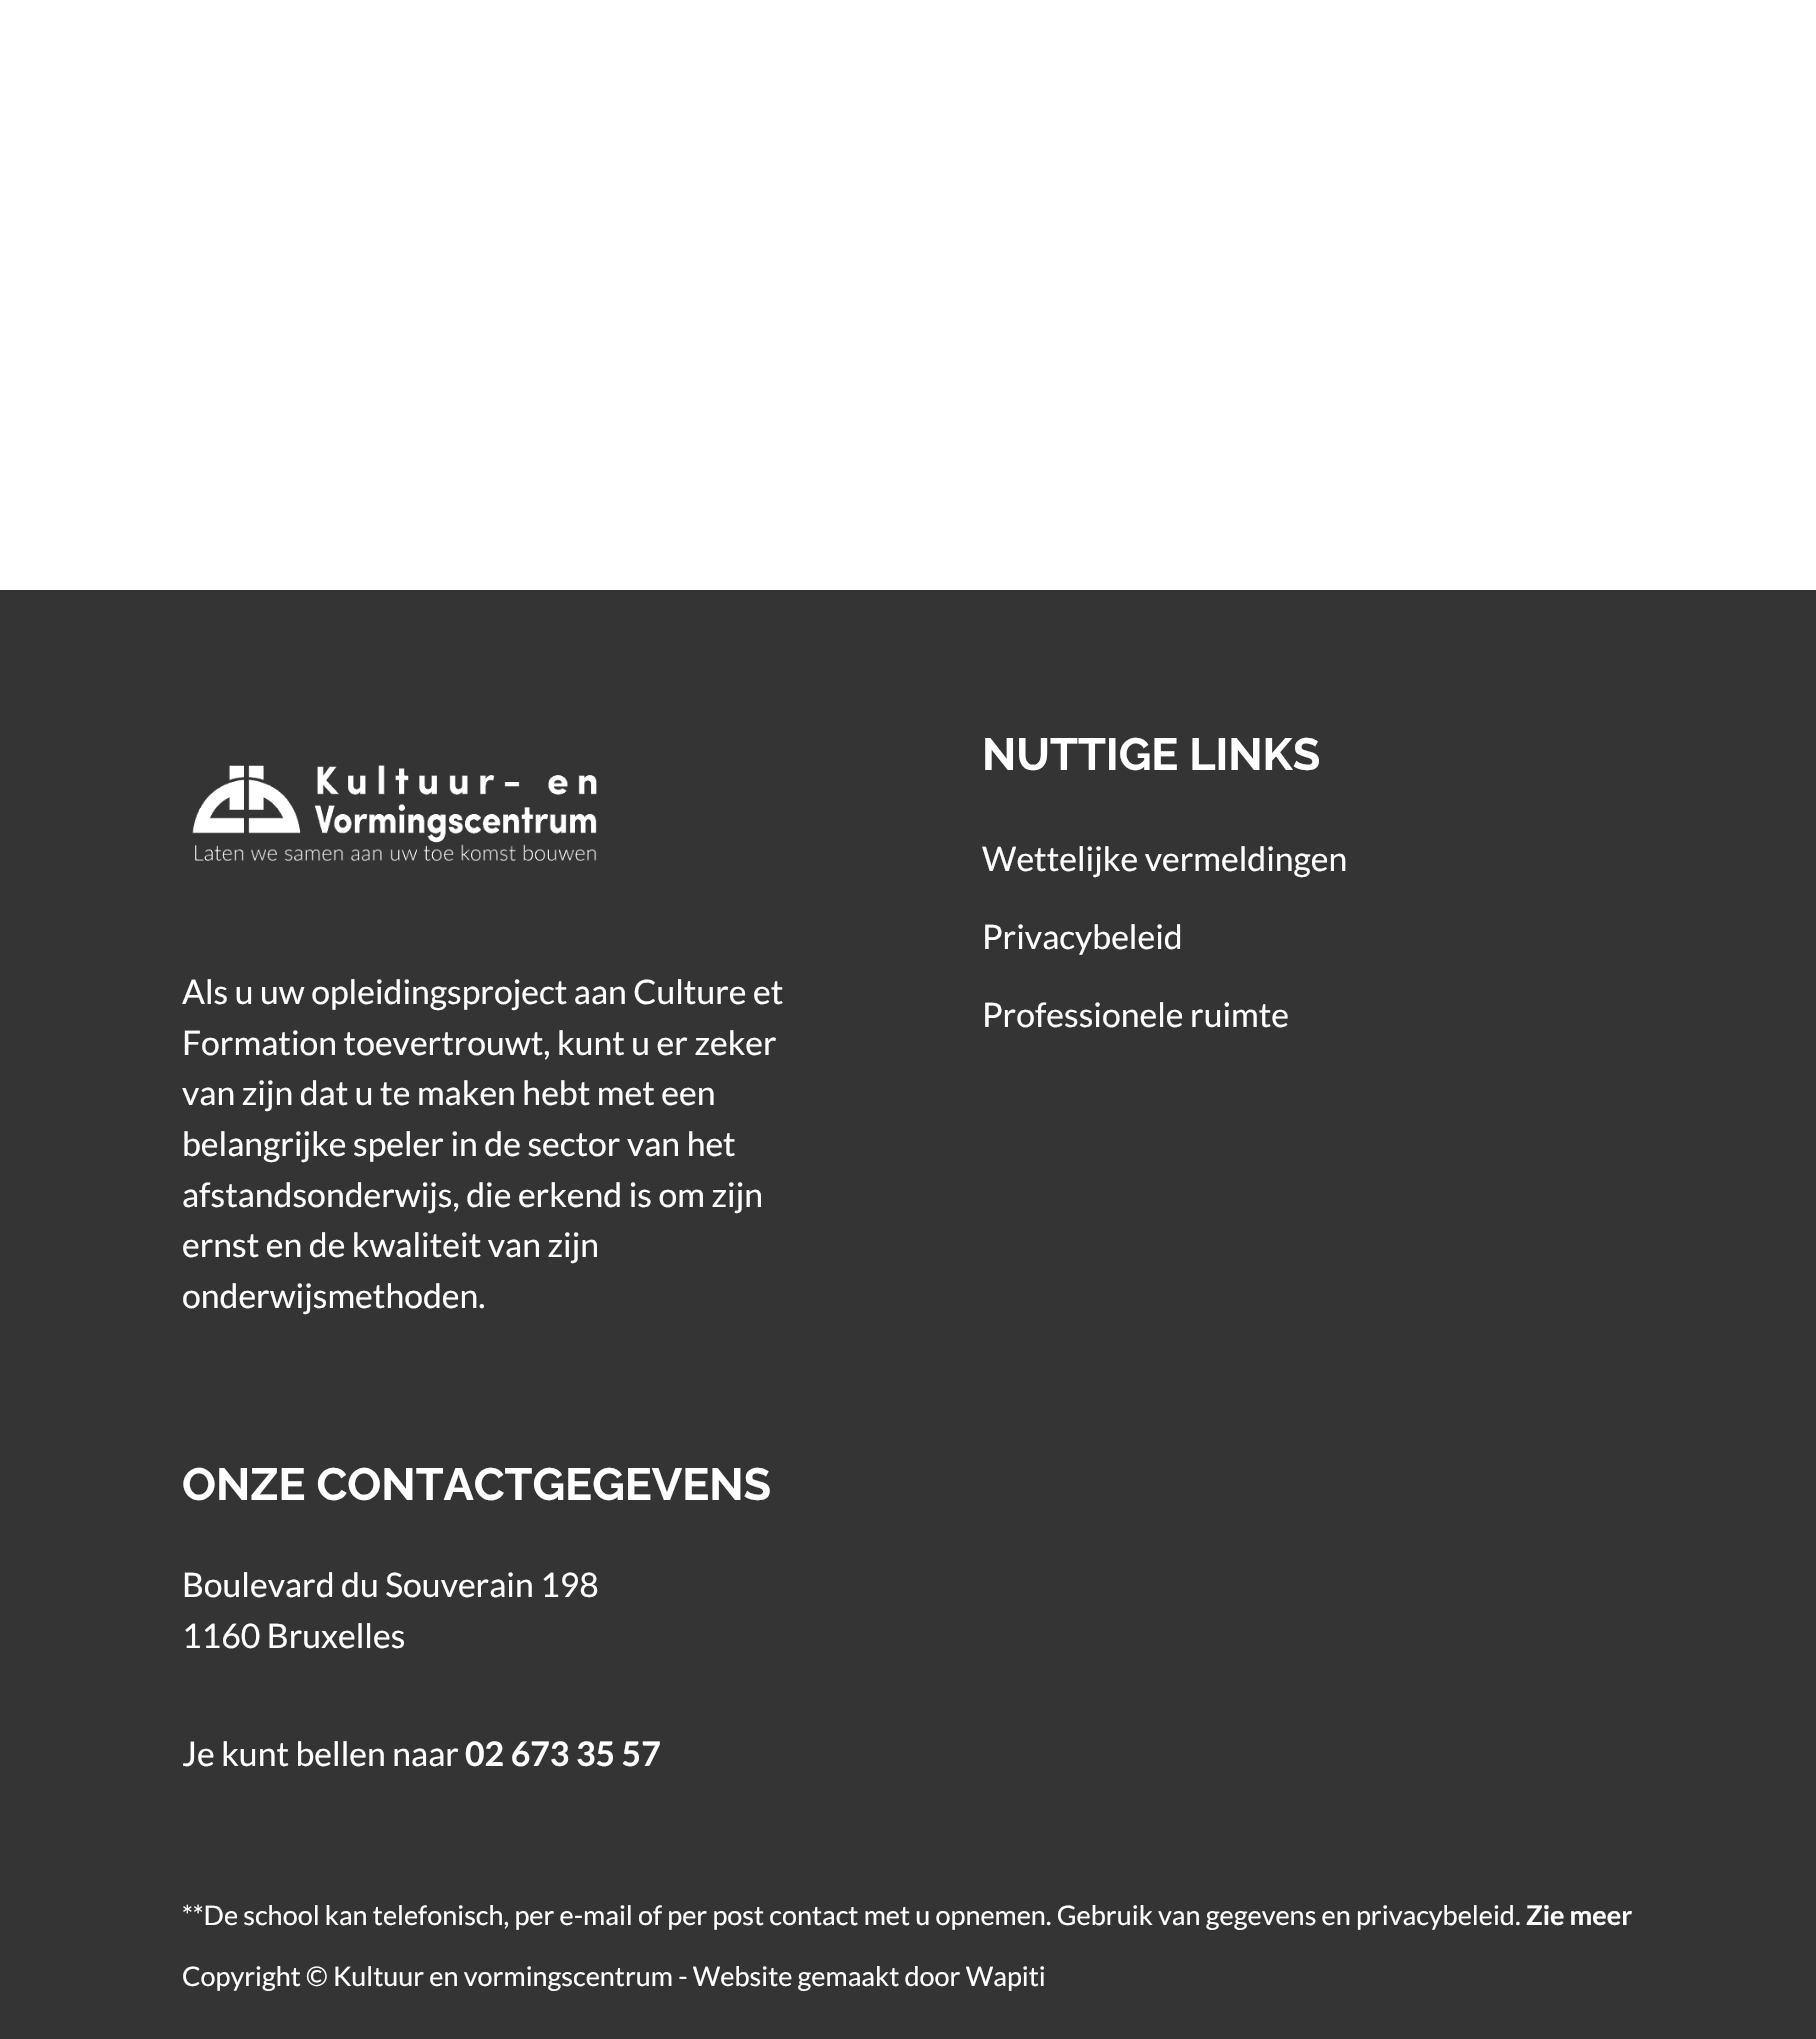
#include "include/core/SkBlurTypes.h"
#include "include/core/SkCanvas.h"
#include "include/core/SkData.h"
#include "include/core/SkFont.h"
#include "include/core/SkFontMgr.h"
#include "include/core/SkImage.h"
#include "include/core/SkMaskFilter.h"
#include "include/core/SkPaint.h"
#include "include/core/SkPathBuilder.h"
#include "include/core/SkTextBlob.h"
#include "include/effects/SkDashPathEffect.h"
#include "include/effects/SkGradientShader.h"
#include "include/utils/SkParsePath.h"

extern sk_sp<SkFontMgr> fontMgr;

void draw(SkCanvas* canvas) {
  SkPaint p;
  p.setAntiAlias(true);
  canvas->clear(SK_ColorWHITE);
  p.setColor(SkColorSetRGB(52, 52, 52));
  canvas->drawRect(SkRect::MakeLTRB(0, 590, 1816, 2039), p);
  canvas->drawImageRect(SkImages::DeferredFromEncodedData(SkData::MakeFromFileName("images/1.png")), SkRect::MakeLTRB(192, 765, 597, 861), SkSamplingOptions());
  SkFont font1(fontMgr->matchFamilyStyle("Raleway", SkFontStyle::Bold()), 45);
  font1.setSubpixel(true);
  p.setColor(SK_ColorWHITE);
  canvas->drawString("NUTTIGE LINKS", 982, 770, font1, p);
  SkFont font2(fontMgr->matchFamilyStyle("Lato", SkFontStyle::Normal()), 33.75f);
  font2.setSubpixel(true);
  canvas->drawString("Wettelijke vermeldingen", 982, 871, font2, p);
  canvas->drawString("Privacybeleid", 982, 949, font2, p);
  canvas->drawString("Professionele ruimte", 982, 1027, font2, p);
  canvas->drawString("Als u uw opleidingsproject aan Culture et", 182, 1004, font2, p);
  canvas->drawString("Formation toevertrouwt, kunt u er zeker", 182, 1055, font2, p);
  canvas->drawString("van zijn dat u te maken hebt met een", 182, 1105, font2, p);
  canvas->drawString("belangrijke speler in de sector van het", 182, 1156, font2, p);
  canvas->drawString("afstandsonderwijs, die erkend is om zijn", 182, 1207, font2, p);
  canvas->drawString("ernst en de kwaliteit van zijn", 182, 1257, font2, p);
  canvas->drawString("onderwijsmethoden.", 182, 1308, font2, p);
  canvas->drawString("ONZE CONTACTGEGEVENS", 182, 1500, font1, p);
  canvas->drawString("Boulevard du Souverain 198", 182, 1597, font2, p);
  canvas->drawString("1160 Bruxelles", 182, 1648, font2, p);
  canvas->drawString("Je kunt bellen naar", 182, 1766, font2, p);
  SkFont font3(fontMgr->matchFamilyStyle("Lato", SkFontStyle::Bold()), 33.75f);
  font3.setSubpixel(true);
  canvas->drawString("02 673 35 57", 465, 1766, font3, p);
  SkFont font4(fontMgr->matchFamilyStyle("Lato", SkFontStyle::Normal()), 27);
  font4.setSubpixel(true);
  canvas->drawString("**De school kan telefonisch, per e-mail of per post contact met u opnemen. Gebruik van gegevens en privacybeleid.", 182, 1925, font4, p);
  SkFont font5(fontMgr->matchFamilyStyle("Lato", SkFontStyle::Bold()), 27);
  font5.setSubpixel(true);
  canvas->drawString("Zie meer", 1526, 1925, font5, p);
  canvas->drawString("Copyright © Kultuur en vormingscentrum - Website gemaakt door Wapiti", 182, 1986, font4, p);
}
